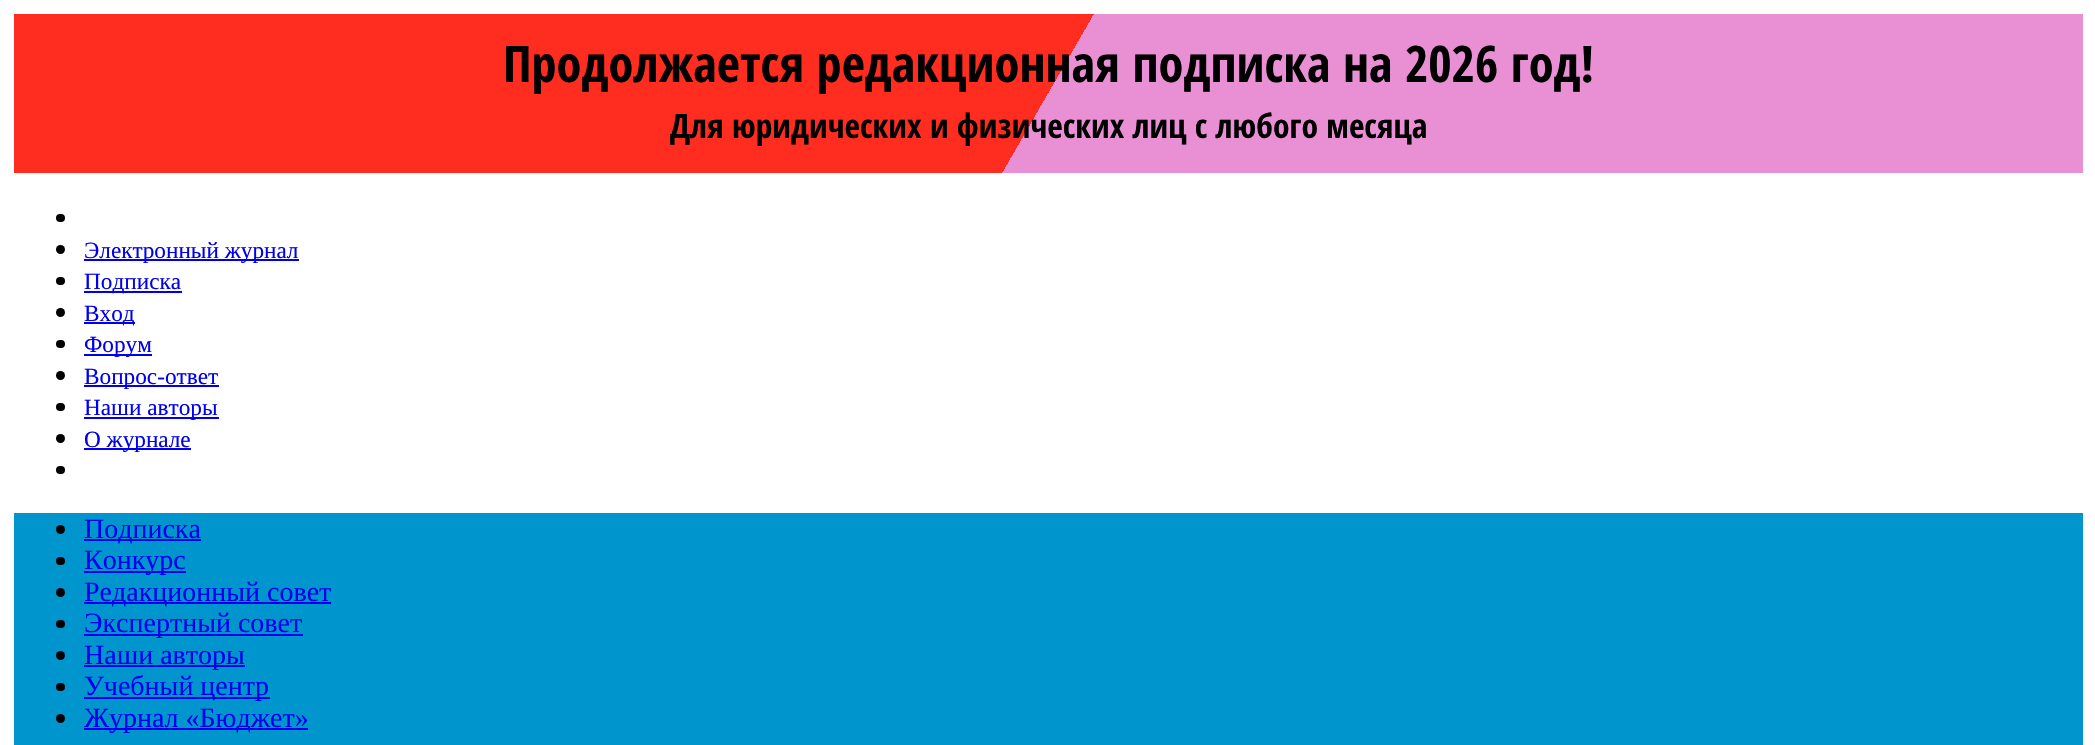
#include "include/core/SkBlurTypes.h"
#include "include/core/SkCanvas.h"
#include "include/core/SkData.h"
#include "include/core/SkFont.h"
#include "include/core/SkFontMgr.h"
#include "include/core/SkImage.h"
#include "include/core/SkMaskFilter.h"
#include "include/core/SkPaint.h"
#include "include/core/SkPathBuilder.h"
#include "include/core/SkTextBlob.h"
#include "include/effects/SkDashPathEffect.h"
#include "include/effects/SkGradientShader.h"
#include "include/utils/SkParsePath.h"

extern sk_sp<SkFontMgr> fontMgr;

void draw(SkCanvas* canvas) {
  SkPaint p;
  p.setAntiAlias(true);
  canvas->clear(SK_ColorWHITE);
  {
    const SkColor colors[] = {SkColorSetRGB(243, 192, 231), SkColorSetRGB(255, 135, 128)};
    const float stops[] = {0.5f, 0.5f};
    const SkPoint ends[] = {{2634, 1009}, {-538, -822}};
    p.setShader(SkGradientShader::MakeLinear(ends, colors, stops, 2, SkTileMode::kClamp));
    p.setAlpha(255);
  }
  canvas->drawRect(SkRect::MakeLTRB(14, 14, 2083, 173), p);
  {
    const SkColor colors[] = {SkColorSetARGB(128, 230, 128, 206), SkColorSetARGB(128, 255, 14, 0)};
    const float stops[] = {0.5f, 0.5f};
    const SkPoint ends[] = {{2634, 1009}, {-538, -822}};
    p.setShader(SkGradientShader::MakeLinear(ends, colors, stops, 2, SkTileMode::kClamp));
    p.setAlpha(255);
  }
  canvas->drawRect(SkRect::MakeLTRB(14, 14, 2083, 173), p);
  canvas->drawRect(SkRect::MakeLTRB(14, 14, 2083, 173), p);
  p.setShader(nullptr);
  p.setColor(SK_ColorBLACK);
  canvas->drawRoundRect(SkRect::MakeLTRB(56, 214, 65, 222), 4, 4, p);
  canvas->drawCircle(60.5f, 249.5f, 4.5f, p);
  p.setColor(SkColorSetRGB(0, 0, 238));
  canvas->drawRect(SkRect::MakeLTRB(84, 259, 299, 261), p);
  p.setColor(SK_ColorBLACK);
  canvas->drawRoundRect(SkRect::MakeLTRB(56, 277, 65, 285), 4, 4, p);
  p.setColor(SkColorSetRGB(0, 0, 238));
  canvas->drawRect(SkRect::MakeLTRB(84, 291, 182, 293), p);
  p.setColor(SK_ColorBLACK);
  canvas->drawCircle(60.5f, 312.5f, 4.5f, p);
  p.setColor(SkColorSetRGB(0, 0, 238));
  canvas->drawRect(SkRect::MakeLTRB(84, 322, 135, 324), p);
  p.setColor(SK_ColorBLACK);
  canvas->drawRoundRect(SkRect::MakeLTRB(56, 340, 65, 348), 4, 4, p);
  p.setColor(SkColorSetRGB(0, 0, 238));
  canvas->drawRect(SkRect::MakeLTRB(84, 354, 152, 356), p);
  p.setColor(SK_ColorBLACK);
  canvas->drawCircle(60.5f, 375.5f, 4.5f, p);
  p.setColor(SkColorSetRGB(0, 0, 238));
  canvas->drawRect(SkRect::MakeLTRB(84, 385, 219, 387), p);
  p.setColor(SK_ColorBLACK);
  canvas->drawRoundRect(SkRect::MakeLTRB(56, 403, 65, 411), 4, 4, p);
  p.setColor(SkColorSetRGB(0, 0, 238));
  canvas->drawRect(SkRect::MakeLTRB(84, 417, 219, 419), p);
  p.setColor(SK_ColorBLACK);
  canvas->drawCircle(60.5f, 438.5f, 4.5f, p);
  p.setColor(SkColorSetRGB(0, 0, 238));
  canvas->drawRect(SkRect::MakeLTRB(84, 448, 191, 450), p);
  p.setColor(SK_ColorBLACK);
  canvas->drawRoundRect(SkRect::MakeLTRB(56, 466, 65, 474), 4, 4, p);
  p.setColor(SkColorSetRGB(0, 149, 205));
  canvas->drawRect(SkRect::MakeLTRB(14, 513, 2083, 745), p);
  p.setColor(SK_ColorBLACK);
  canvas->drawCircle(60.5f, 529.5f, 4.5f, p);
  p.setColor(SkColorSetRGB(0, 0, 238));
  canvas->drawRect(SkRect::MakeLTRB(84, 539, 201, 541), p);
  p.setColor(SK_ColorBLACK);
  canvas->drawRoundRect(SkRect::MakeLTRB(56, 557, 65, 565), 4, 4, p);
  p.setColor(SkColorSetRGB(0, 0, 238));
  canvas->drawRect(SkRect::MakeLTRB(84, 571, 186, 573), p);
  p.setColor(SK_ColorBLACK);
  canvas->drawCircle(60.5f, 592.5f, 4.5f, p);
  p.setColor(SkColorSetRGB(0, 0, 238));
  canvas->drawRect(SkRect::MakeLTRB(84, 602, 331, 604), p);
  p.setColor(SK_ColorBLACK);
  canvas->drawRoundRect(SkRect::MakeLTRB(56, 620, 65, 628), 4, 4, p);
  p.setColor(SkColorSetRGB(0, 0, 238));
  canvas->drawRect(SkRect::MakeLTRB(84, 634, 303, 636), p);
  p.setColor(SK_ColorBLACK);
  canvas->drawCircle(60.5f, 655.5f, 4.5f, p);
  p.setColor(SkColorSetRGB(0, 0, 238));
  canvas->drawRect(SkRect::MakeLTRB(84, 665, 245, 667), p);
  p.setColor(SK_ColorBLACK);
  canvas->drawRoundRect(SkRect::MakeLTRB(56, 683, 65, 691), 4, 4, p);
  p.setColor(SkColorSetRGB(0, 0, 238));
  canvas->drawRect(SkRect::MakeLTRB(84, 697, 270, 699), p);
  p.setColor(SK_ColorBLACK);
  canvas->drawCircle(60.5f, 718.5f, 4.5f, p);
  p.setColor(SkColorSetRGB(0, 0, 238));
  canvas->drawRect(SkRect::MakeLTRB(84, 728, 308, 730), p);
  SkFont font1(fontMgr->matchFamilyStyle("Open Sans Condensed", SkFontStyle::Bold()), 50.4f);
  font1.setSubpixel(true);
  p.setColor(SK_ColorBLACK);
  canvas->drawString("Продолжается редакционная подписка на 2026 год!", 503, 82, font1, p);
  SkFont font2(fontMgr->matchFamilyStyle("Open Sans Condensed", SkFontStyle::Bold()), 33.6f);
  font2.setSubpixel(true);
  canvas->drawString("Для юридических и физических лиц с любого месяца", 670, 138, font2, p);
  SkFont font3(fontMgr->matchFamilyStyle("Liberation Serif", SkFontStyle::Normal()), 23.25f);
  font3.setSubpixel(true);
  p.setColor(SkColorSetRGB(0, 0, 238));
  canvas->drawString("Электронный журнал", 84, 258, font3, p);
  canvas->drawString("Подписка", 84, 289, font3, p);
  canvas->drawString("Вход", 84, 321, font3, p);
  canvas->drawString("Форум", 84, 352, font3, p);
  canvas->drawString("Вопрос-ответ", 84, 384, font3, p);
  canvas->drawString("Наши авторы", 84, 415, font3, p);
  canvas->drawString("О журнале", 84, 447, font3, p);
  SkFont font4(fontMgr->matchFamilyStyle("Liberation Serif", SkFontStyle::Normal()), 28);
  font4.setSubpixel(true);
  canvas->drawString("Подписка", 84, 538, font4, p);
  canvas->drawString("Конкурс", 84, 569, font4, p);
  canvas->drawString("Редакционный совет", 84, 601, font4, p);
  canvas->drawString("Экспертный совет", 84, 632, font4, p);
  canvas->drawString("Наши авторы", 84, 664, font4, p);
  canvas->drawString("Учебный центр", 84, 695, font4, p);
  canvas->drawString("Журнал «Бюджет»", 84, 727, font4, p);
}
